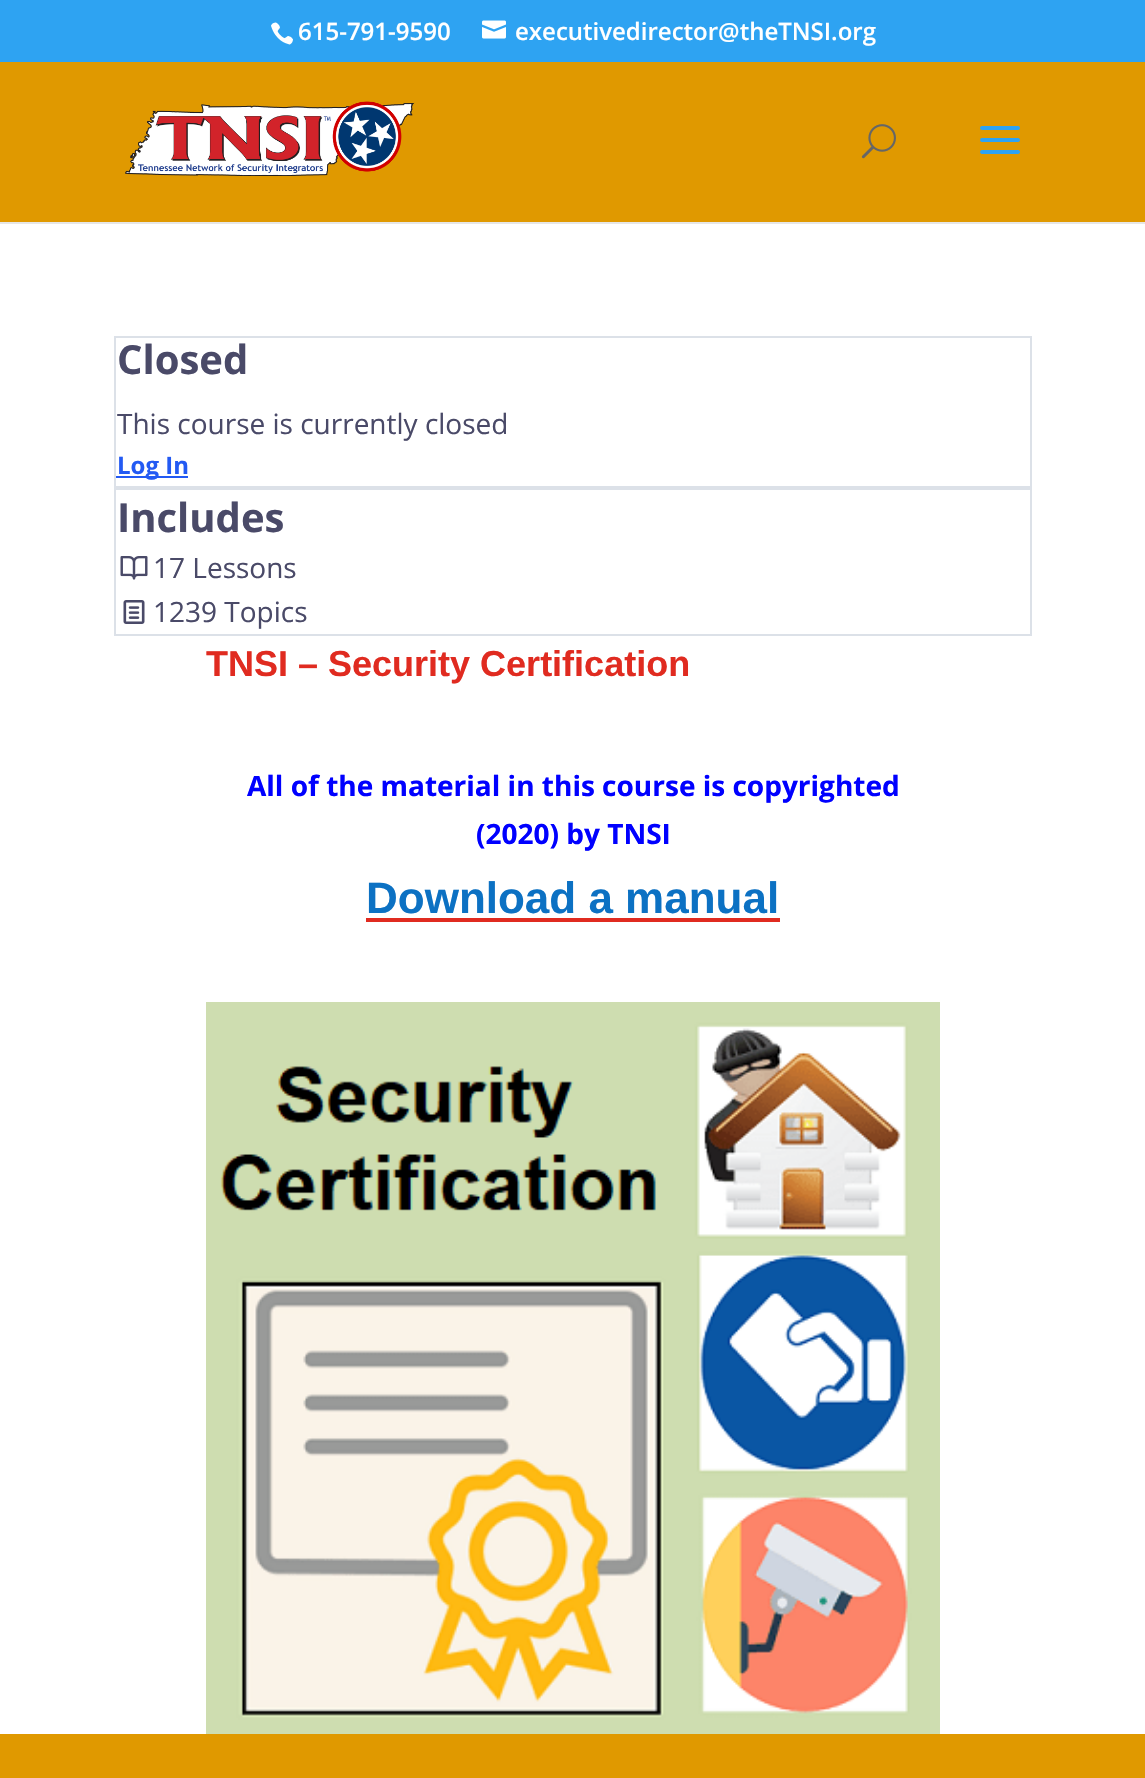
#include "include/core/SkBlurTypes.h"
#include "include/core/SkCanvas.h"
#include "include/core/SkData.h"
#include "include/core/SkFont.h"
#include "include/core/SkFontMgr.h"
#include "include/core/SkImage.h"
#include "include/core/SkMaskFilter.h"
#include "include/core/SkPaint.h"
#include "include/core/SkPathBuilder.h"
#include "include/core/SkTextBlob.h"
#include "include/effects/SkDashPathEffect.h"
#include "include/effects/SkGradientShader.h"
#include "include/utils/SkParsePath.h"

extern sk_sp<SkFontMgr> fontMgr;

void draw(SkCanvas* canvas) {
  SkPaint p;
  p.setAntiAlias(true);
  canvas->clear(SK_ColorWHITE);
  p.setColor(SkColorSetRGB(46, 163, 242));
  canvas->drawRect(SkRect::MakeLTRB(0, 0, 1145, 62), p);
  canvas->drawImageRect(SkImages::DeferredFromEncodedData(SkData::MakeFromFileName("images/1.png")), SkRect::MakeLTRB(271, 22, 293, 45), SkSamplingOptions());
  canvas->drawImageRect(SkImages::DeferredFromEncodedData(SkData::MakeFromFileName("images/2.png")), SkRect::MakeLTRB(482, 20, 506, 39), SkSamplingOptions());
  p.setColor(SkColorSetRGB(230, 230, 230));
  canvas->drawRect(SkRect::MakeLTRB(0, 222, 1145, 224), p);
  p.setColor(SkColorSetRGB(224, 153, 0));
  canvas->drawRect(SkRect::MakeLTRB(0, 62, 1145, 222), p);
  canvas->drawImageRect(SkImages::DeferredFromEncodedData(SkData::MakeFromFileName("images/3.png")), SkRect::MakeLTRB(125, 101, 415, 176), SkSamplingOptions());
  canvas->drawImageRect(SkImages::DeferredFromEncodedData(SkData::MakeFromFileName("images/4.png")), SkRect::MakeLTRB(861, 124, 896, 159), SkSamplingOptions());
  canvas->drawImageRect(SkImages::DeferredFromEncodedData(SkData::MakeFromFileName("images/5.png")), SkRect::MakeLTRB(980, 126, 1020, 154), SkSamplingOptions());
  p.setStyle(SkPaint::kStroke_Style);
  p.setStrokeWidth(2);
  p.setColor(SkColorSetRGB(220, 225, 232));
  canvas->drawRect(SkRect::MakeLTRB(115, 337, 1031, 487), p);
  p.setStyle(SkPaint::kFill_Style);
  p.setColor(SkColorSetRGB(35, 90, 243));
  canvas->drawRect(SkRect::MakeLTRB(116, 476, 188, 478), p);
  p.setStyle(SkPaint::kStroke_Style);
  p.setColor(SkColorSetRGB(220, 225, 232));
  canvas->drawRect(SkRect::MakeLTRB(115, 489, 1031, 635), p);
  canvas->drawImageRect(SkImages::DeferredFromEncodedData(SkData::MakeFromFileName("images/6.png")), SkRect::MakeLTRB(120, 556, 148, 580), SkSamplingOptions());
  canvas->drawImageRect(SkImages::DeferredFromEncodedData(SkData::MakeFromFileName("images/7.png")), SkRect::MakeLTRB(123, 600, 145, 624), SkSamplingOptions());
  p.setStyle(SkPaint::kFill_Style);
  p.setColor(SkColorSetRGB(224, 43, 32));
  canvas->drawRect(SkRect::MakeLTRB(366, 918, 780, 922), p);
  canvas->drawImageRect(SkImages::DeferredFromEncodedData(SkData::MakeFromFileName("images/8.png")), SkRect::MakeLTRB(206, 1002, 940, 1734), SkSamplingOptions());
  p.setColor(SkColorSetRGB(224, 153, 0));
  canvas->drawRect(SkRect::MakeLTRB(0, 1734, 1145, 1778), p);
  SkFont font1(fontMgr->matchFamilyStyle("Open Sans", SkFontStyle(600, SkFontStyle::kNormal_Width, SkFontStyle::kUpright_Slant)), 24);
  font1.setSubpixel(true);
  p.setColor(SK_ColorWHITE);
  canvas->drawString("615-791-9590", 298, 40, font1, p);
  canvas->drawString("executivedirector@theTNSI.org", 515, 40, font1, p);
  SkFont font2(fontMgr->matchFamilyStyle("Open Sans", SkFontStyle::Bold()), 40);
  font2.setSubpixel(true);
  p.setColor(SkColorSetRGB(74, 74, 104));
  canvas->drawString("Closed", 117, 374, font2, p);
  SkFont font3(fontMgr->matchFamilyStyle("Open Sans", SkFontStyle::Normal()), 28);
  font3.setSubpixel(true);
  canvas->drawString("This course is currently closed", 117, 434, font3, p);
  SkFont font4(fontMgr->matchFamilyStyle("Open Sans", SkFontStyle::Bold()), 24);
  font4.setSubpixel(true);
  p.setColor(SkColorSetRGB(35, 90, 243));
  canvas->drawString("Log In", 117, 474, font4, p);
  p.setColor(SkColorSetRGB(74, 74, 104));
  canvas->drawString("Includes", 117, 532, font2, p);
  canvas->drawString("17 Lessons", 153, 578, font3, p);
  canvas->drawString("1239 Topics", 153, 622, font3, p);
  SkFont font5(fontMgr->matchFamilyStyle("Liberation Sans", SkFontStyle::Bold()), 36);
  font5.setSubpixel(true);
  p.setColor(SkColorSetRGB(224, 43, 32));
  canvas->drawString("TNSI – Security Certification", 206, 676, font5, p);
  SkFont font6(fontMgr->matchFamilyStyle("Open Sans", SkFontStyle::Bold()), 28);
  font6.setSubpixel(true);
  p.setColor(SkColorSetRGB(0, 0, 255));
  canvas->drawString("All of the material in this course is copyrighted", 247, 796, font6, p);
  canvas->drawString("(2020) by TNSI", 476, 844, font6, p);
  SkFont font7(fontMgr->matchFamilyStyle("Liberation Sans", SkFontStyle::Bold()), 44);
  font7.setSubpixel(true);
  p.setColor(SkColorSetRGB(12, 113, 195));
  canvas->drawString("Download a manual", 366, 913, font7, p);
}
